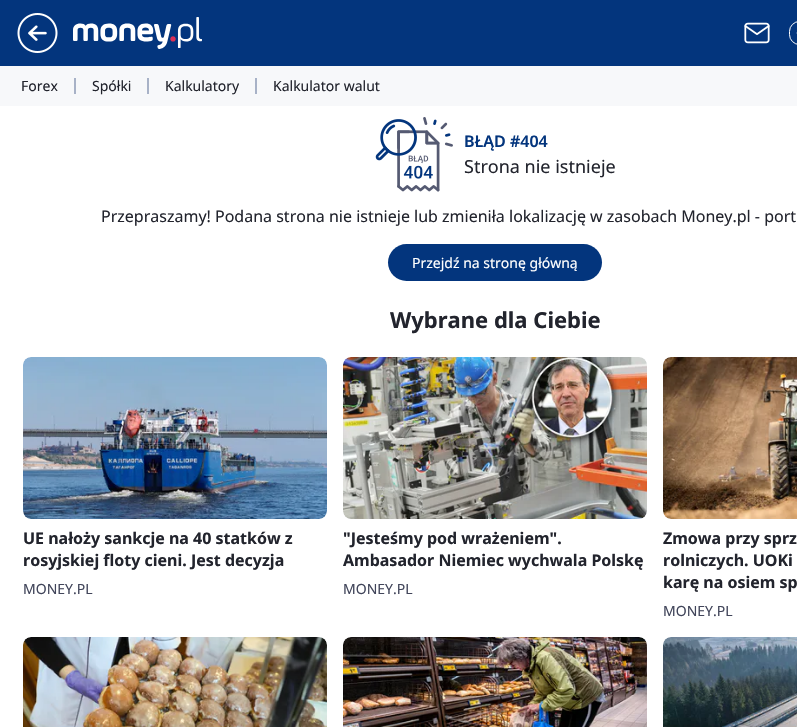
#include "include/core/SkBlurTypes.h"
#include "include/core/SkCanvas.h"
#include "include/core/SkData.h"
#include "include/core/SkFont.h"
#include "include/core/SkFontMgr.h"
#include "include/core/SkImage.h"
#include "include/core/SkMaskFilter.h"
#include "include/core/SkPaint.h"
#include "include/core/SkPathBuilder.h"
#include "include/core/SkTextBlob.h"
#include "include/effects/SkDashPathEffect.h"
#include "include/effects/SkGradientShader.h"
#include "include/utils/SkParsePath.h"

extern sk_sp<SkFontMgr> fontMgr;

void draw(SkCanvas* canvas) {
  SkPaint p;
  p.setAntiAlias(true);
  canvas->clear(SK_ColorWHITE);
  p.setColor(SkColorSetRGB(3, 53, 125));
  canvas->drawRect(SkRect::MakeLTRB(0, 0, 797, 66), p);
  canvas->drawImageRect(SkImages::DeferredFromEncodedData(SkData::MakeFromFileName("images/1.png")), SkRect::MakeLTRB(17, 13, 58, 53), SkSamplingOptions());
  canvas->drawImageRect(SkImages::DeferredFromEncodedData(SkData::MakeFromFileName("images/2.png")), SkRect::MakeLTRB(73, 17, 202, 49), SkSamplingOptions());
  canvas->drawImageRect(SkImages::DeferredFromEncodedData(SkData::MakeFromFileName("images/3.png")), SkRect::MakeLTRB(744, 22, 770, 44), SkSamplingOptions());
  p.setStyle(SkPaint::kStroke_Style);
  p.setStrokeWidth(1);
  p.setColor(SK_ColorWHITE);
  canvas->drawRoundRect(SkRect::MakeLTRB(789.5f, 21.5f, 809.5f, 44.5f), 11.5f, 11.5f, p);
  p.setStyle(SkPaint::kFill_Style);
  p.setColor(SkColorSetRGB(48, 89, 148));
  canvas->drawRect(SkRect::MakeLTRB(796, 32, 797, 34), p);
  p.setColor(SkColorSetRGB(247, 248, 250));
  canvas->drawRect(SkRect::MakeLTRB(0, 66, 797, 106), p);
  p.setColor(SkColorSetRGB(168, 178, 199));
  canvas->drawRect(SkRect::MakeLTRB(74, 78, 76, 94), p);
  canvas->drawRect(SkRect::MakeLTRB(147, 78, 149, 94), p);
  canvas->drawRect(SkRect::MakeLTRB(255, 78, 257, 94), p);
  canvas->drawImageRect(SkImages::DeferredFromEncodedData(SkData::MakeFromFileName("images/4.png")), SkRect::MakeLTRB(375, 117, 453, 192), SkSamplingOptions());
  p.setColor(SkColorSetRGB(3, 53, 125));
  canvas->drawRoundRect(SkRect::MakeLTRB(388, 244, 602, 281), 18.5f, 18.5f, p);
  p.setColor(SkColorSetRGB(247, 248, 250));
  canvas->drawRoundRect(SkRect::MakeLTRB(23, 357, 327, 519), 8, 8, p);
  canvas->drawImageRect(SkImages::DeferredFromEncodedData(SkData::MakeFromFileName("images/5.png")), SkRect::MakeLTRB(23, 357, 327, 519), SkSamplingOptions());
  canvas->drawRoundRect(SkRect::MakeLTRB(343, 357, 647, 519), 8, 8, p);
  canvas->drawImageRect(SkImages::DeferredFromEncodedData(SkData::MakeFromFileName("images/6.png")), SkRect::MakeLTRB(343, 357, 647, 519), SkSamplingOptions());
  canvas->drawRoundRect(SkRect::MakeLTRB(663, 357, 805, 519), 8, 8, p);
  canvas->drawImageRect(SkImages::DeferredFromEncodedData(SkData::MakeFromFileName("images/7.png")), SkRect::MakeLTRB(663, 357, 797, 519), SkSamplingOptions());
  canvas->drawRoundRect(SkRect::MakeLTRB(23, 637, 327, 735), 8, 8, p);
  canvas->drawImageRect(SkImages::DeferredFromEncodedData(SkData::MakeFromFileName("images/8.png")), SkRect::MakeLTRB(23, 637, 327, 727), SkSamplingOptions());
  canvas->drawRoundRect(SkRect::MakeLTRB(343, 637, 647, 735), 8, 8, p);
  canvas->drawImageRect(SkImages::DeferredFromEncodedData(SkData::MakeFromFileName("images/9.png")), SkRect::MakeLTRB(343, 637, 647, 727), SkSamplingOptions());
  canvas->drawRoundRect(SkRect::MakeLTRB(663, 637, 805, 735), 8, 8, p);
  canvas->drawImageRect(SkImages::DeferredFromEncodedData(SkData::MakeFromFileName("images/10.png")), SkRect::MakeLTRB(663, 637, 797, 727), SkSamplingOptions());
  SkFont font1(fontMgr->matchFamilyStyle("Noto Sans", SkFontStyle::Normal()), 14);
  font1.setSubpixel(true);
  p.setColor(SkColorSetRGB(34, 36, 45));
  canvas->drawString("Forex", 21, 91, font1, p);
  canvas->drawString("Spółki", 92, 91, font1, p);
  canvas->drawString("Kalkulatory", 165, 91, font1, p);
  canvas->drawString("Kalkulator walut", 273, 91, font1, p);
  SkFont font2(fontMgr->matchFamilyStyle("Noto Sans", SkFontStyle(600, SkFontStyle::kNormal_Width, SkFontStyle::kUpright_Slant)), 16);
  font2.setSubpixel(true);
  p.setColor(SkColorSetRGB(3, 53, 125));
  canvas->drawString("BŁĄD #404", 464, 147, font2, p);
  SkFont font3(fontMgr->matchFamilyStyle("Noto Sans", SkFontStyle::Normal()), 18);
  font3.setSubpixel(true);
  p.setColor(SkColorSetRGB(34, 36, 45));
  canvas->drawString("Strona nie istnieje", 464, 173, font3, p);
  SkFont font4(fontMgr->matchFamilyStyle("Noto Sans", SkFontStyle::Normal()), 16);
  font4.setSubpixel(true);
  canvas->drawString("Przepraszamy! Podana strona nie istnieje lub zmieniła lokalizację w zasobach Money.pl - port", 101, 222, font4, p);
  p.setColor(SK_ColorWHITE);
  canvas->drawString("Przejdź na stronę główną", 412, 268, font1, p);
  SkFont font5(fontMgr->matchFamilyStyle("Noto Sans", SkFontStyle::Bold()), 22);
  font5.setSubpixel(true);
  p.setColor(SkColorSetRGB(34, 36, 45));
  canvas->drawString("Wybrane dla Ciebie", 390, 328, font5, p);
  SkFont font6(fontMgr->matchFamilyStyle("Noto Sans", SkFontStyle::Bold()), 16);
  font6.setSubpixel(true);
  canvas->drawString("UE nałoży sankcje na 40 statków z", 23, 544, font6, p);
  canvas->drawString("rosyjskiej floty cieni. Jest decyzja", 23, 566, font6, p);
  p.setColor(SkColorSetRGB(65, 69, 90));
  canvas->drawString("MONEY.PL", 23, 594, font1, p);
  p.setColor(SkColorSetRGB(34, 36, 45));
  canvas->drawString("\"Jesteśmy pod wrażeniem\".", 343, 544, font6, p);
  canvas->drawString("Ambasador Niemiec wychwala Polskę", 343, 566, font6, p);
  p.setColor(SkColorSetRGB(65, 69, 90));
  canvas->drawString("MONEY.PL", 343, 594, font1, p);
  p.setColor(SkColorSetRGB(34, 36, 45));
  canvas->drawString("Zmowa przy sprz", 663, 544, font6, p);
  canvas->drawString("rolniczych. UOKi", 663, 566, font6, p);
  canvas->drawString("karę na osiem sp", 663, 588, font6, p);
  p.setColor(SkColorSetRGB(65, 69, 90));
  canvas->drawString("MONEY.PL", 663, 616, font1, p);
}
